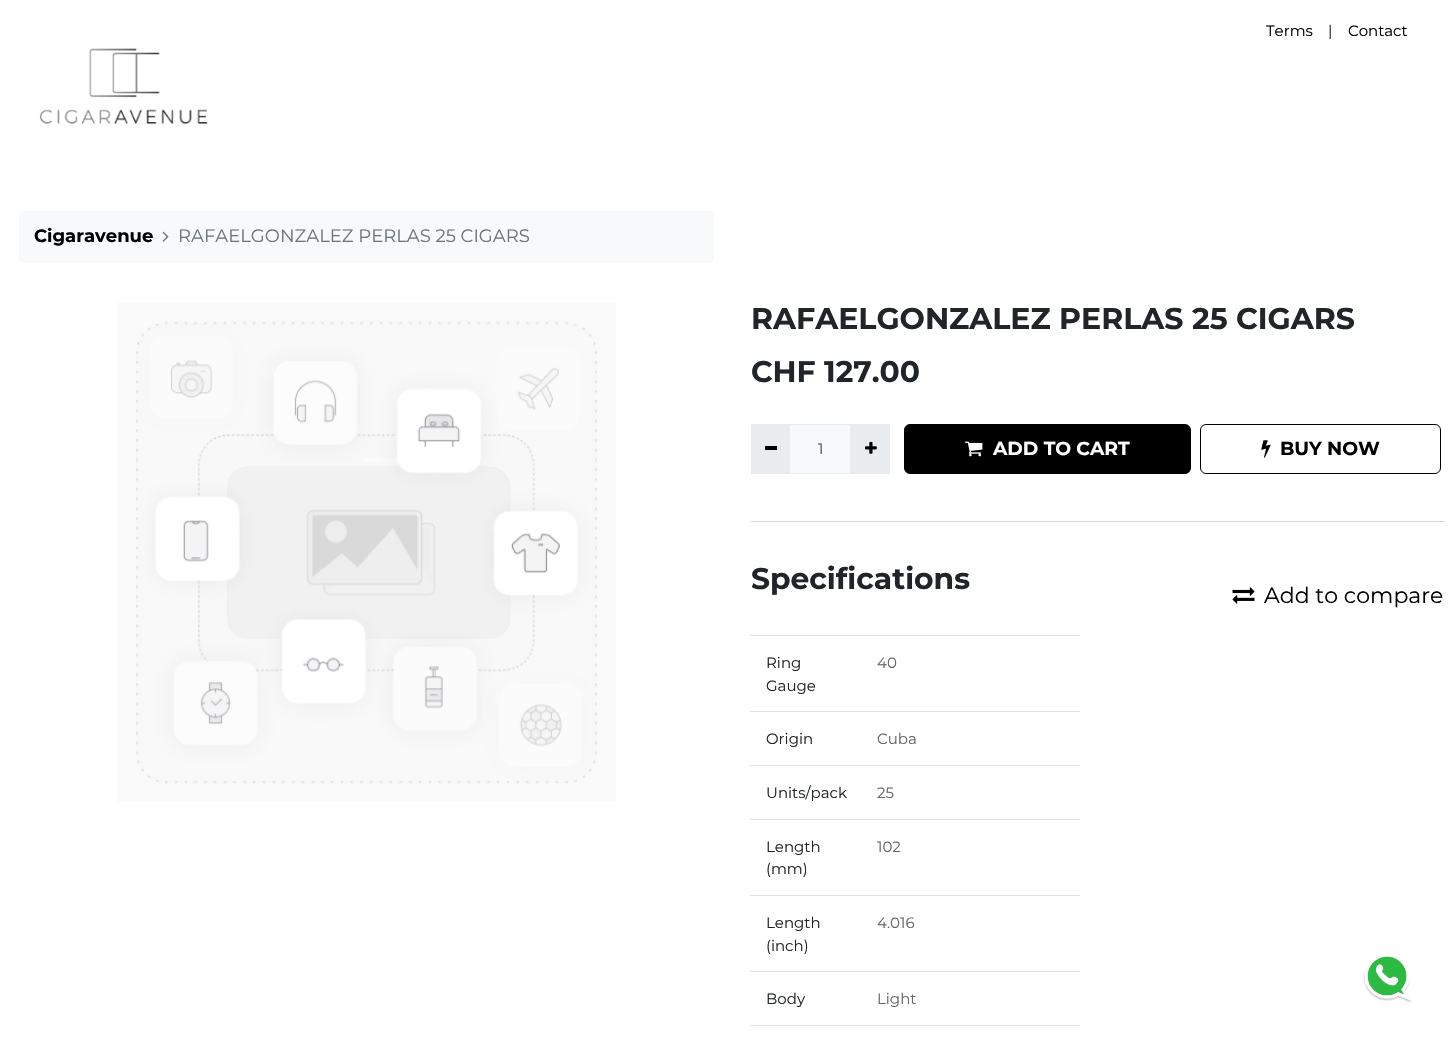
#include "include/core/SkBlurTypes.h"
#include "include/core/SkCanvas.h"
#include "include/core/SkData.h"
#include "include/core/SkFont.h"
#include "include/core/SkFontMgr.h"
#include "include/core/SkImage.h"
#include "include/core/SkMaskFilter.h"
#include "include/core/SkPaint.h"
#include "include/core/SkPathBuilder.h"
#include "include/core/SkTextBlob.h"
#include "include/effects/SkDashPathEffect.h"
#include "include/effects/SkGradientShader.h"
#include "include/utils/SkParsePath.h"

extern sk_sp<SkFontMgr> fontMgr;

void draw(SkCanvas* canvas) {
  SkPaint p;
  p.setAntiAlias(true);
  canvas->clear(SK_ColorWHITE);
  canvas->drawImageRect(SkImages::DeferredFromEncodedData(SkData::MakeFromFileName("images/1.png")), SkRect::MakeLTRB(39, 48, 208, 124), SkSamplingOptions());
  canvas->drawImageRect(SkImages::DeferredFromEncodedData(SkData::MakeFromFileName("images/2.png")), SkRect::MakeLTRB(1364, 956, 1412, 1003), SkSamplingOptions());
  p.setColor(SkColorSetRGB(248, 249, 250));
  canvas->drawRoundRect(SkRect::MakeLTRB(19, 211, 714, 263), 5, 5, p);
  canvas->drawImageRect(SkImages::DeferredFromEncodedData(SkData::MakeFromFileName("images/3.png")), SkRect::MakeLTRB(162, 231, 169, 242), SkSamplingOptions());
  canvas->drawImageRect(SkImages::DeferredFromEncodedData(SkData::MakeFromFileName("images/4.png")), SkRect::MakeLTRB(117, 302, 616, 802), SkSamplingOptions());
  p.setColor(SkColorSetRGB(233, 236, 239));
  canvas->drawRect(SkRect::MakeLTRB(751, 424, 789, 474), p);
  p.setColor(SK_ColorBLACK);
  canvas->drawRect(SkRect::MakeLTRB(765, 446, 777, 450), p);
  p.setColor(SkColorSetRGB(248, 249, 250));
  canvas->drawRect(SkRect::MakeLTRB(789.5f, 424.5f, 850.5f, 473.5f), p);
  p.setStyle(SkPaint::kStroke_Style);
  p.setStrokeWidth(1);
  p.setColor(SkColorSetRGB(233, 236, 239));
  canvas->drawRect(SkRect::MakeLTRB(789.5f, 424.5f, 850.5f, 473.5f), p);
  p.setStyle(SkPaint::kFill_Style);
  canvas->drawRect(SkRect::MakeLTRB(851, 424, 890, 474), p);
  canvas->drawImageRect(SkImages::DeferredFromEncodedData(SkData::MakeFromFileName("images/5.png")), SkRect::MakeLTRB(865, 441, 877, 454), SkSamplingOptions());
  p.setColor(SK_ColorBLACK);
  canvas->drawRoundRect(SkRect::MakeLTRB(904.5f, 424.5f, 1190.5f, 473.5f), 5.5f, 5.5f, p);
  p.setStyle(SkPaint::kStroke_Style);
  canvas->drawRoundRect(SkRect::MakeLTRB(904.5f, 424.5f, 1190.5f, 473.5f), 5.5f, 5.5f, p);
  canvas->drawImageRect(SkImages::DeferredFromEncodedData(SkData::MakeFromFileName("images/6.png")), SkRect::MakeLTRB(965, 441, 983, 457), SkSamplingOptions());
  canvas->drawRoundRect(SkRect::MakeLTRB(1200.5f, 424.5f, 1440.5f, 473.5f), 5.5f, 5.5f, p);
  canvas->drawImageRect(SkImages::DeferredFromEncodedData(SkData::MakeFromFileName("images/7.png")), SkRect::MakeLTRB(1261, 440, 1271, 458), SkSamplingOptions());
  p.setStyle(SkPaint::kFill_Style);
  p.setColor(SkColorSetRGB(206, 212, 218));
  canvas->drawRect(SkRect::MakeLTRB(751, 521, 1445, 522), p);
  canvas->drawImageRect(SkImages::DeferredFromEncodedData(SkData::MakeFromFileName("images/8.png")), SkRect::MakeLTRB(1232, 587, 1255, 604), SkSamplingOptions());
  p.setColor(SkColorSetRGB(222, 226, 230));
  canvas->drawRect(SkRect::MakeLTRB(750, 635, 1080, 636), p);
  canvas->drawRect(SkRect::MakeLTRB(750, 711, 1080, 712), p);
  canvas->drawRect(SkRect::MakeLTRB(750, 765, 1080, 766), p);
  canvas->drawRect(SkRect::MakeLTRB(750, 819, 1080, 820), p);
  canvas->drawRect(SkRect::MakeLTRB(750, 895, 1080, 896), p);
  canvas->drawRect(SkRect::MakeLTRB(750, 971, 1080, 972), p);
  canvas->drawRect(SkRect::MakeLTRB(750, 1025, 1080, 1026), p);
  SkFont font1(fontMgr->matchFamilyStyle("Montserrat", SkFontStyle::Normal()), 15);
  font1.setSubpixel(true);
  p.setColor(SK_ColorBLACK);
  canvas->drawString("Terms", 1266, 36, font1, p);
  p.setColor(SkColorSetRGB(33, 37, 41));
  canvas->drawString("|", 1328, 36, font1, p);
  p.setColor(SK_ColorBLACK);
  canvas->drawString("Contact", 1348, 36, font1, p);
  SkFont font2(fontMgr->matchFamilyStyle("Montserrat", SkFontStyle::Bold()), 18);
  font2.setSubpixel(true);
  canvas->drawString("Cigaravenue", 34, 242, font2, p);
  SkFont font3(fontMgr->matchFamilyStyle("Montserrat", SkFontStyle::Normal()), 18);
  font3.setSubpixel(true);
  p.setColor(SkColorSetRGB(108, 117, 125));
  canvas->drawString("RAFAELGONZALEZ PERLAS 25 CIGARS", 178, 242, font3, p);
  SkFont font4(fontMgr->matchFamilyStyle("Montserrat", SkFontStyle::Bold()), 30);
  font4.setSubpixel(true);
  p.setColor(SkColorSetRGB(33, 37, 41));
  canvas->drawString("RAFAELGONZALEZ PERLAS 25 CIGARS", 751, 329, font4, p);
  SkFont font5(fontMgr->matchFamilyStyle("Montserrat", SkFontStyle::Bold()), 29.75f);
  font5.setSubpixel(true);
  canvas->drawString("CHF 127.00", 751, 382, font5, p);
  p.setColor(SkColorSetRGB(73, 80, 87));
  canvas->drawString("1", 818, 454, font1, p);
  SkFont font6(fontMgr->matchFamilyStyle("Montserrat", SkFontStyle::Bold()), 18.75f);
  font6.setSubpixel(true);
  p.setColor(SK_ColorWHITE);
  canvas->drawString("ADD TO CART", 993, 455, font6, p);
  p.setColor(SK_ColorBLACK);
  canvas->drawString("BUY NOW", 1280, 455, font6, p);
  p.setColor(SkColorSetRGB(33, 37, 41));
  canvas->drawString("Specifications", 751, 589, font5, p);
  SkFont font7(fontMgr->matchFamilyStyle("Montserrat", SkFontStyle::Normal()), 22);
  font7.setSubpixel(true);
  p.setColor(SK_ColorBLACK);
  canvas->drawString("Add to compare", 1264, 603, font7, p);
  p.setColor(SkColorSetRGB(33, 37, 41));
  canvas->drawString("Ring", 766, 668, font1, p);
  canvas->drawString("Gauge", 766, 691, font1, p);
  p.setColor(SkColorSetRGB(100, 102, 105));
  canvas->drawString("40", 877, 668, font1, p);
  p.setColor(SkColorSetRGB(33, 37, 41));
  canvas->drawString("Origin", 766, 744, font1, p);
  p.setColor(SkColorSetRGB(100, 102, 105));
  canvas->drawString("Cuba", 877, 744, font1, p);
  p.setColor(SkColorSetRGB(33, 37, 41));
  canvas->drawString("Units/pack", 766, 798, font1, p);
  p.setColor(SkColorSetRGB(100, 102, 105));
  canvas->drawString("25", 877, 798, font1, p);
  p.setColor(SkColorSetRGB(33, 37, 41));
  canvas->drawString("Length", 766, 852, font1, p);
  canvas->drawString("(mm)", 766, 874, font1, p);
  p.setColor(SkColorSetRGB(100, 102, 105));
  canvas->drawString("102", 877, 852, font1, p);
  p.setColor(SkColorSetRGB(33, 37, 41));
  canvas->drawString("Length", 766, 928, font1, p);
  canvas->drawString("(inch)", 766, 951, font1, p);
  p.setColor(SkColorSetRGB(100, 102, 105));
  canvas->drawString("4.016", 877, 928, font1, p);
  p.setColor(SkColorSetRGB(33, 37, 41));
  canvas->drawString("Body", 766, 1004, font1, p);
  p.setColor(SkColorSetRGB(100, 102, 105));
  canvas->drawString("Light", 877, 1004, font1, p);
}
